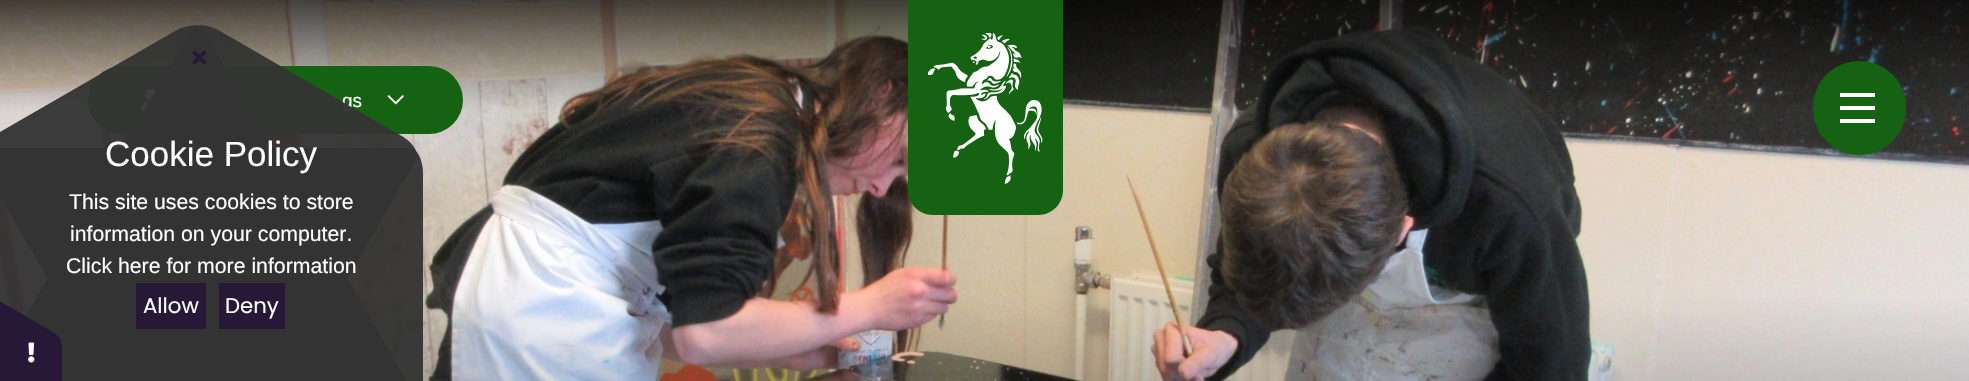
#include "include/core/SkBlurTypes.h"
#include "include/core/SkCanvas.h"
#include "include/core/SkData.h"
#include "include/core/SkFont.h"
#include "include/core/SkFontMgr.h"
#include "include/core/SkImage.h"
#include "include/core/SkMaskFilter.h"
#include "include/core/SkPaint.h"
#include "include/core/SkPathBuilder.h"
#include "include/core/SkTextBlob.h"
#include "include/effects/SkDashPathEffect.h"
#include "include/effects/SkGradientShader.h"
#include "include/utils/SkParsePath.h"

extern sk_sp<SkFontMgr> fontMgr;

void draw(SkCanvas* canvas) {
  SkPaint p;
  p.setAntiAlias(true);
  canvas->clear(SK_ColorWHITE);
  canvas->drawImageRect(SkImages::DeferredFromEncodedData(SkData::MakeFromFileName("images/1.png")), SkRect::MakeLTRB(0, 0, 1969, 381), SkSamplingOptions());
  p.setColor(SkColorSetRGB(21, 98, 18));
  canvas->drawRoundRect(SkRect::MakeLTRB(88, 66, 463, 134), 34, 34, p);
  canvas->drawImageRect(SkImages::DeferredFromEncodedData(SkData::MakeFromFileName("images/2.png")), SkRect::MakeLTRB(141, 89, 170, 112), SkSamplingOptions());
  canvas->drawImageRect(SkImages::DeferredFromEncodedData(SkData::MakeFromFileName("images/3.png")), SkRect::MakeLTRB(387, 95, 404, 105), SkSamplingOptions());
  canvas->drawPath(SkPathBuilder().moveTo(908, 0).lineTo(1063, 0).lineTo(1063, 190).cubicTo(1063, 204, 1052, 215, 1038, 215).lineTo(933, 215).cubicTo(919, 215, 908, 204, 908, 190).close().detach(), p);
  canvas->drawImageRect(SkImages::DeferredFromEncodedData(SkData::MakeFromFileName("images/4.png")), SkRect::MakeLTRB(928, 33, 1043, 184), SkSamplingOptions());
  canvas->drawRoundRect(SkRect::MakeLTRB(1813, 61, 1906, 155), 46.5f, 46.5f, p);
  p.setColor(SK_ColorWHITE);
  canvas->drawRect(SkRect::MakeLTRB(1840, 93, 1875, 97), p);
  canvas->drawRect(SkRect::MakeLTRB(1840, 106, 1875, 110), p);
  canvas->drawRect(SkRect::MakeLTRB(1840, 119, 1875, 123), p);
  p.setColor(SkColorSetARGB(242, 51, 51, 51));
  canvas->drawPath(SkPathBuilder().moveTo(423, 174).lineTo(423, 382).cubicTo(423, 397, 417, 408, 410, 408).lineTo(-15, 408).cubicTo(-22, 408, -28, 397, -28, 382).lineTo(-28, 174).cubicTo(-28, 160, -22, 148, -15, 148).lineTo(410, 148).cubicTo(417, 148, 423, 160, 423, 174).close().detach(), p);
  SkFont font1(fontMgr->matchFamilyStyle("Liberation Sans", SkFontStyle::Normal()), 19);
  font1.setSubpixel(true);
  p.setColor(SK_ColorWHITE);
  canvas->drawString("gs", 342, 107, font1, p);
  p.setColor(SkColorSetARGB(242, 51, 51, 51));
  canvas->drawPath(SkPathBuilder().moveTo(400, 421).lineTo(220, 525).cubicTo(208, 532, 195, 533, 191, 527).lineTo(-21, 160).cubicTo(-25, 153, -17, 142, -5, 135).lineTo(175, 31).cubicTo(188, 24, 201, 23, 204, 30).lineTo(416, 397).cubicTo(420, 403, 413, 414, 400, 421).close().detach(), p);
  canvas->drawPath(SkPathBuilder().moveTo(220, 31).lineTo(400, 135).cubicTo(413, 142, 420, 153, 416, 160).lineTo(204, 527).cubicTo(201, 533, 188, 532, 175, 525).lineTo(-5, 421).cubicTo(-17, 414, -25, 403, -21, 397).lineTo(191, 30).cubicTo(195, 23, 208, 24, 220, 31).close().detach(), p);
  canvas->drawImageRect(SkImages::DeferredFromEncodedData(SkData::MakeFromFileName("images/5.png")), SkRect::MakeLTRB(192, 50, 207, 65), SkSamplingOptions());
  SkFont font2(fontMgr->matchFamilyStyle("Liberation Sans", SkFontStyle::Normal()), 35);
  font2.setSubpixel(true);
  p.setColor(SK_ColorWHITE);
  canvas->drawString("Cookie Policy", 105, 166, font2, p);
  SkFont font3(fontMgr->matchFamilyStyle("Liberation Sans", SkFontStyle::Normal()), 21.25f);
  font3.setSubpixel(true);
  canvas->drawString("This site uses cookies to store", 69, 209, font3, p);
  canvas->drawString("information on your computer.", 70, 241, font3, p);
  canvas->drawString("Click here for more information", 66, 273, font3, p);
  p.setColor(SkColorSetRGB(40, 24, 56));
  canvas->drawRect(SkRect::MakeLTRB(136, 283, 206, 329), p);
  SkFont font4(fontMgr->matchFamilyStyle("Poppins", SkFontStyle::Normal()), 21.25f);
  font4.setSubpixel(true);
  p.setColor(SK_ColorWHITE);
  canvas->drawString("Allow", 143, 313, font4, p);
  p.setColor(SkColorSetRGB(40, 24, 56));
  canvas->drawRect(SkRect::MakeLTRB(219, 283, 285, 329), p);
  p.setColor(SK_ColorWHITE);
  canvas->drawString("Deny", 225, 313, font4, p);
  p.setColor(SkColorSetRGB(40, 24, 56));
  canvas->drawPath(SkPathBuilder().moveTo(62, 347).lineTo(62, 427).cubicTo(62, 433, 60, 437, 57, 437).lineTo(-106, 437).cubicTo(-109, 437, -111, 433, -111, 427).lineTo(-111, 347).cubicTo(-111, 342, -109, 337, -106, 337).lineTo(57, 337).cubicTo(60, 337, 62, 342, 62, 347).close().detach(), p);
  canvas->drawPath(SkPathBuilder().moveTo(-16, 292).lineTo(53, 332).cubicTo(58, 335, 61, 339, 60, 342).lineTo(-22, 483).cubicTo(-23, 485, -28, 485, -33, 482).lineTo(-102, 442).cubicTo(-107, 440, -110, 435, -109, 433).lineTo(-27, 292).cubicTo(-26, 289, -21, 290, -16, 292).close().detach(), p);
  canvas->drawImageRect(SkImages::DeferredFromEncodedData(SkData::MakeFromFileName("images/6.png")), SkRect::MakeLTRB(28, 342, 35, 363), SkSamplingOptions());
}
